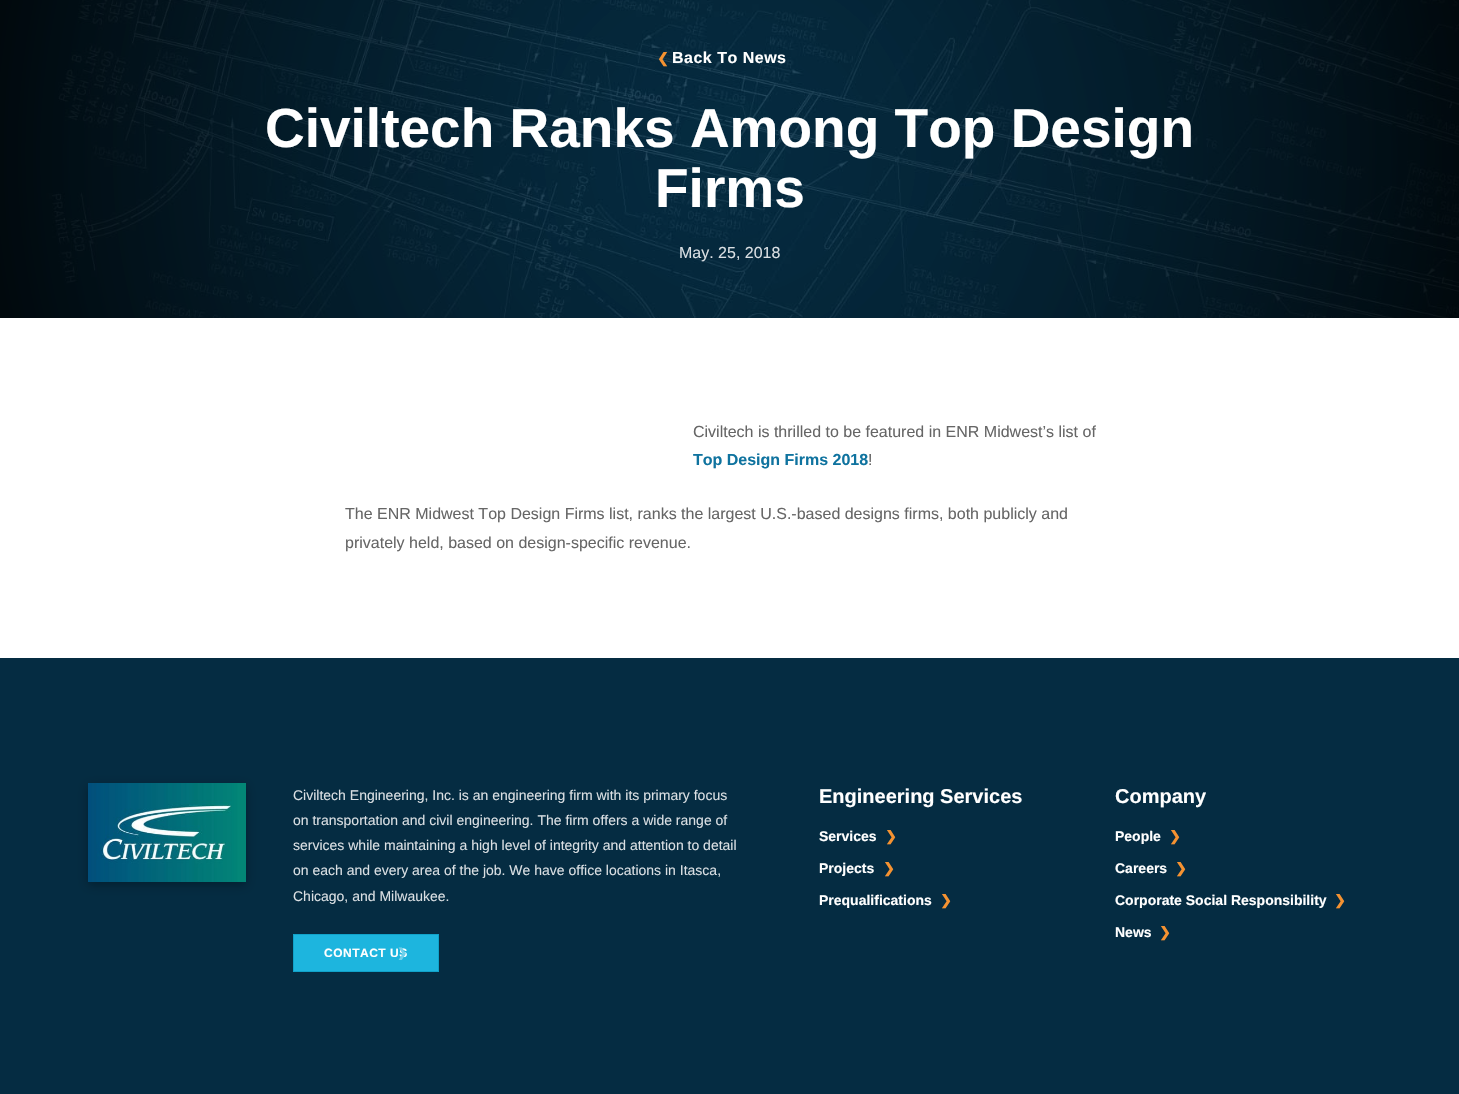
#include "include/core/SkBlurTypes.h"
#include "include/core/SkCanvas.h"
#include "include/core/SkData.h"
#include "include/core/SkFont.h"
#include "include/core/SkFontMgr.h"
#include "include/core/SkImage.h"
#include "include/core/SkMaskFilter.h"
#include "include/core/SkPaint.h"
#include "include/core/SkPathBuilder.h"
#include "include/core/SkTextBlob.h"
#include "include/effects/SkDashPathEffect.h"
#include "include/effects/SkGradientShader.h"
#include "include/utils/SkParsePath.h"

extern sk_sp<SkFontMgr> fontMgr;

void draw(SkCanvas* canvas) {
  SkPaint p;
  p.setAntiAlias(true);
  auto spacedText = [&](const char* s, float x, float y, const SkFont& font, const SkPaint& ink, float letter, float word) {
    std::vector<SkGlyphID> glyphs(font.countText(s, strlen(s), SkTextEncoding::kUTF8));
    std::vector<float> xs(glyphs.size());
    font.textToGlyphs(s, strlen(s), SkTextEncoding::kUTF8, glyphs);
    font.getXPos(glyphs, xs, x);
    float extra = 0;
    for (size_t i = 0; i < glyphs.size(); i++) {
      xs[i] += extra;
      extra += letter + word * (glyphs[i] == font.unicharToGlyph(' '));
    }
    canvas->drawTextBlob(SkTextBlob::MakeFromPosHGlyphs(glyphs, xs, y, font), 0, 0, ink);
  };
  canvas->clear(SK_ColorWHITE);
  canvas->drawImageRect(SkImages::DeferredFromEncodedData(SkData::MakeFromFileName("images/1.png")), SkRect::MakeLTRB(0, 0, 1459, 318), SkSamplingOptions());
  p.setColor(SkColorSetRGB(5, 44, 66));
  canvas->drawRect(SkRect::MakeLTRB(0, 658, 1459, 1094), p);
  p.setColor(SkColorSetARGB(77, 0, 0, 0));
  p.setMaskFilter(SkMaskFilter::MakeBlur(kNormal_SkBlurStyle, 5));
  canvas->drawRect(SkRect::MakeLTRB(88, 786, 246, 885), p);
  p.setMaskFilter(nullptr);
  canvas->drawImageRect(SkImages::DeferredFromEncodedData(SkData::MakeFromFileName("images/2.png")), SkRect::MakeLTRB(88, 783, 246, 882), SkSamplingOptions());
  p.setColor(SkColorSetRGB(29, 181, 222));
  canvas->drawRect(SkRect::MakeLTRB(293.5f, 934.5f, 438.5f, 971.5f), p);
  p.setStyle(SkPaint::kStroke_Style);
  p.setStrokeWidth(1);
  p.setColor(SkColorSetRGB(17, 162, 201));
  canvas->drawRect(SkRect::MakeLTRB(293.5f, 934.5f, 438.5f, 971.5f), p);
  SkFont font1(fontMgr->matchFamilyStyle("DejaVu Sans", SkFontStyle::Bold()), 14);
  font1.setSubpixel(true);
  p.setStyle(SkPaint::kFill_Style);
  p.setColor(SkColorSetRGB(245, 146, 49));
  spacedText("❮", 657, 63, font1, p, 0.5f, 0);
  SkFont font2(fontMgr->matchFamilyStyle("Liberation Sans", SkFontStyle::Bold()), 16);
  font2.setSubpixel(true);
  p.setColor(SK_ColorWHITE);
  spacedText("Back To News", 672, 63, font2, p, 0.5f, 0);
  SkFont font3(fontMgr->matchFamilyStyle("Liberation Sans", SkFontStyle::Bold()), 55);
  font3.setSubpixel(true);
  canvas->drawString("Civiltech Ranks Among Top Design", 265, 147, font3, p);
  canvas->drawString("Firms", 655, 207, font3, p);
  SkFont font4(fontMgr->matchFamilyStyle("Liberation Sans", SkFontStyle::Normal()), 16);
  font4.setSubpixel(true);
  p.setColor(SkColorSetRGB(218, 223, 227));
  canvas->drawString("May. 25, 2018", 679, 258, font4, p);
  p.setColor(SkColorSetRGB(102, 102, 102));
  canvas->drawString("Civiltech is thrilled to be featured in ENR Midwest’s list of", 693, 437, font4, p);
  p.setColor(SkColorSetRGB(15, 115, 159));
  canvas->drawString("Top Design Firms 2018", 693, 465, font2, p);
  p.setColor(SkColorSetRGB(102, 102, 102));
  canvas->drawString("!", 868, 465, font4, p);
  canvas->drawString("The ENR Midwest Top Design Firms list, ranks the largest U.S.-based designs firms, both publicly and", 345, 519, font4, p);
  canvas->drawString("privately held, based on design-specific revenue.", 345, 548, font4, p);
  SkFont font5(fontMgr->matchFamilyStyle("Liberation Sans", SkFontStyle::Normal()), 14);
  font5.setSubpixel(true);
  p.setColor(SkColorSetRGB(218, 223, 227));
  canvas->drawString("Civiltech Engineering, Inc. is an engineering firm with its primary focus", 293, 800, font5, p);
  canvas->drawString("on transportation and civil engineering. The firm offers a wide range of", 293, 825, font5, p);
  canvas->drawString("services while maintaining a high level of integrity and attention to detail", 293, 850, font5, p);
  canvas->drawString("on each and every area of the job. We have office locations in Itasca,", 293, 875, font5, p);
  canvas->drawString("Chicago, and Milwaukee.", 293, 901, font5, p);
  SkFont font6(fontMgr->matchFamilyStyle("Liberation Sans", SkFontStyle::Bold()), 12);
  font6.setSubpixel(true);
  p.setColor(SK_ColorWHITE);
  spacedText("CONTACT US", 324, 957, font6, p, 0.5f, 0);
  SkFont font7(fontMgr->matchFamilyStyle("DejaVu Sans", SkFontStyle::Bold()), 12);
  font7.setSubpixel(true);
  p.setColor(SkColorSetRGB(112, 208, 234));
  spacedText("❯", 397, 957, font7, p, 0.5f, 0);
  SkFont font8(fontMgr->matchFamilyStyle("Liberation Sans", SkFontStyle::Bold()), 20);
  font8.setSubpixel(true);
  p.setColor(SK_ColorWHITE);
  canvas->drawString("Engineering Services", 819, 803, font8, p);
  SkFont font9(fontMgr->matchFamilyStyle("Liberation Sans", SkFontStyle::Bold()), 14);
  font9.setSubpixel(true);
  canvas->drawString("Services", 819, 841, font9, p);
  p.setColor(SkColorSetRGB(245, 146, 49));
  canvas->drawString("❯", 885, 841, font1, p);
  p.setColor(SK_ColorWHITE);
  canvas->drawString("Projects", 819, 873, font9, p);
  p.setColor(SkColorSetRGB(245, 146, 49));
  canvas->drawString("❯", 883, 873, font1, p);
  p.setColor(SK_ColorWHITE);
  canvas->drawString("Prequalifications", 819, 905, font9, p);
  p.setColor(SkColorSetRGB(245, 146, 49));
  canvas->drawString("❯", 940, 905, font1, p);
  p.setColor(SK_ColorWHITE);
  canvas->drawString("Company", 1115, 803, font8, p);
  canvas->drawString("People", 1115, 841, font9, p);
  p.setColor(SkColorSetRGB(245, 146, 49));
  canvas->drawString("❯", 1169, 841, font1, p);
  p.setColor(SK_ColorWHITE);
  canvas->drawString("Careers", 1115, 873, font9, p);
  p.setColor(SkColorSetRGB(245, 146, 49));
  canvas->drawString("❯", 1175, 873, font1, p);
  p.setColor(SK_ColorWHITE);
  canvas->drawString("Corporate Social Responsibility", 1115, 905, font9, p);
  p.setColor(SkColorSetRGB(245, 146, 49));
  canvas->drawString("❯", 1334, 905, font1, p);
  p.setColor(SK_ColorWHITE);
  canvas->drawString("News", 1115, 937, font9, p);
  p.setColor(SkColorSetRGB(245, 146, 49));
  canvas->drawString("❯", 1159, 937, font1, p);
}
